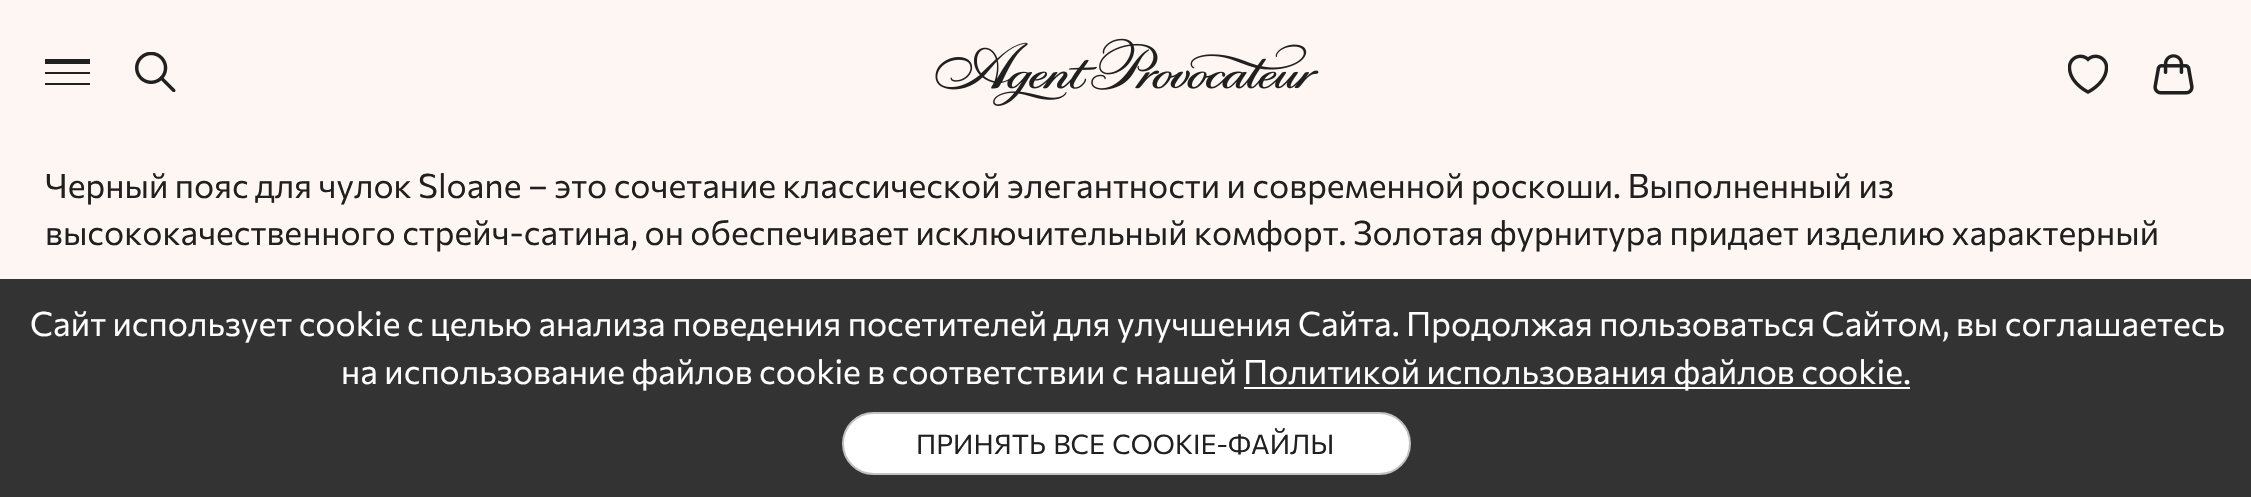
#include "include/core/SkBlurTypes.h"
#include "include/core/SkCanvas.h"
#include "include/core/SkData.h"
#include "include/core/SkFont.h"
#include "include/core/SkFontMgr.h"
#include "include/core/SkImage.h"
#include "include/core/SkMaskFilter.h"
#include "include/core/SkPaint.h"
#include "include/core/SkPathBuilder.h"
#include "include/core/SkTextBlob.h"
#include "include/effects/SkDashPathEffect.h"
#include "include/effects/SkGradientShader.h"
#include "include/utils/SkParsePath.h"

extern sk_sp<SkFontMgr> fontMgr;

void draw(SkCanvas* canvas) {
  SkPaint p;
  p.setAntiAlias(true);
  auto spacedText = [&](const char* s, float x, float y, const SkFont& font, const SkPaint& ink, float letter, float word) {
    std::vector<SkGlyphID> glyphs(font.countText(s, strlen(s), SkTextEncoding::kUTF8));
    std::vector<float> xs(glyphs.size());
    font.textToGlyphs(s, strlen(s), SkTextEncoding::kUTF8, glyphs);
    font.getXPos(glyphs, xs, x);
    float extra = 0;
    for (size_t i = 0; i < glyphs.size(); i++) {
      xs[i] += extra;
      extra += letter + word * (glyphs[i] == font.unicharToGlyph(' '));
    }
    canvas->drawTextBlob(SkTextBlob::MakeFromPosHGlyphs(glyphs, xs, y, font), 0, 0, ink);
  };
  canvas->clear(SkColorSetRGB(254, 246, 242));
  p.setColor(SkColorSetRGB(32, 32, 32));
  canvas->drawRect(SkRect::MakeLTRB(45, 72, 90, 74), p);
  canvas->drawRect(SkRect::MakeLTRB(45, 59, 90, 64), p);
  canvas->drawRect(SkRect::MakeLTRB(45, 83, 90, 85), p);
  canvas->drawImageRect(SkImages::DeferredFromEncodedData(SkData::MakeFromFileName("images/1.png")), SkRect::MakeLTRB(135, 52, 176, 92), SkSamplingOptions());
  canvas->drawImageRect(SkImages::DeferredFromEncodedData(SkData::MakeFromFileName("images/2.png")), SkRect::MakeLTRB(935, 38, 1319, 106), SkSamplingOptions());
  canvas->drawImageRect(SkImages::DeferredFromEncodedData(SkData::MakeFromFileName("images/3.png")), SkRect::MakeLTRB(2068, 54, 2108, 94), SkSamplingOptions());
  canvas->drawImageRect(SkImages::DeferredFromEncodedData(SkData::MakeFromFileName("images/4.png")), SkRect::MakeLTRB(2153, 54, 2194, 95), SkSamplingOptions());
  p.setColor(SkColorSetRGB(51, 51, 51));
  canvas->drawRect(SkRect::MakeLTRB(0, 279, 2251, 497), p);
  p.setColor(SK_ColorWHITE);
  canvas->drawRect(SkRect::MakeLTRB(1244, 387, 1910, 389), p);
  canvas->drawRoundRect(SkRect::MakeLTRB(843, 413, 1410, 474), 30.5f, 30.5f, p);
  p.setStyle(SkPaint::kStroke_Style);
  p.setStrokeWidth(2);
  p.setColor(SkColorSetRGB(194, 194, 194));
  canvas->drawRoundRect(SkRect::MakeLTRB(843, 413, 1410, 474), 30.5f, 30.5f, p);
  SkFont font1(fontMgr->matchFamilyStyle("Commissioner", SkFontStyle::Normal()), 33.75f);
  font1.setSubpixel(true);
  p.setStyle(SkPaint::kFill_Style);
  p.setColor(SkColorSetRGB(32, 32, 32));
  canvas->drawString("Черный пояс для чулок Sloane – это сочетание классической элегантности и современной роскоши. Выполненный из", 45, 198, font1, p);
  canvas->drawString("высококачественного стрейч-сатина, он обеспечивает исключительный комфорт. Золотая фурнитура придает изделию характерный", 45, 245, font1, p);
  p.setColor(SK_ColorWHITE);
  canvas->drawString("Сайт использует cookie с целью анализа поведения посетителей для улучшения Сайта. Продолжая пользоваться Сайтом, вы соглашаетесь", 30, 336, font1, p);
  canvas->drawString("на использование файлов cookie в соответствии с нашей", 341, 384, font1, p);
  canvas->drawString("Политикой использования файлов cookie.", 1243, 384, font1, p);
  SkFont font2(fontMgr->matchFamilyStyle("Commissioner", SkFontStyle::Normal()), 27);
  font2.setSubpixel(true);
  p.setColor(SkColorSetRGB(32, 32, 32));
  spacedText("ПРИНЯТЬ ВСЕ COOKIE-ФАЙЛЫ", 916, 454, font2, p, 0, 2);
}
